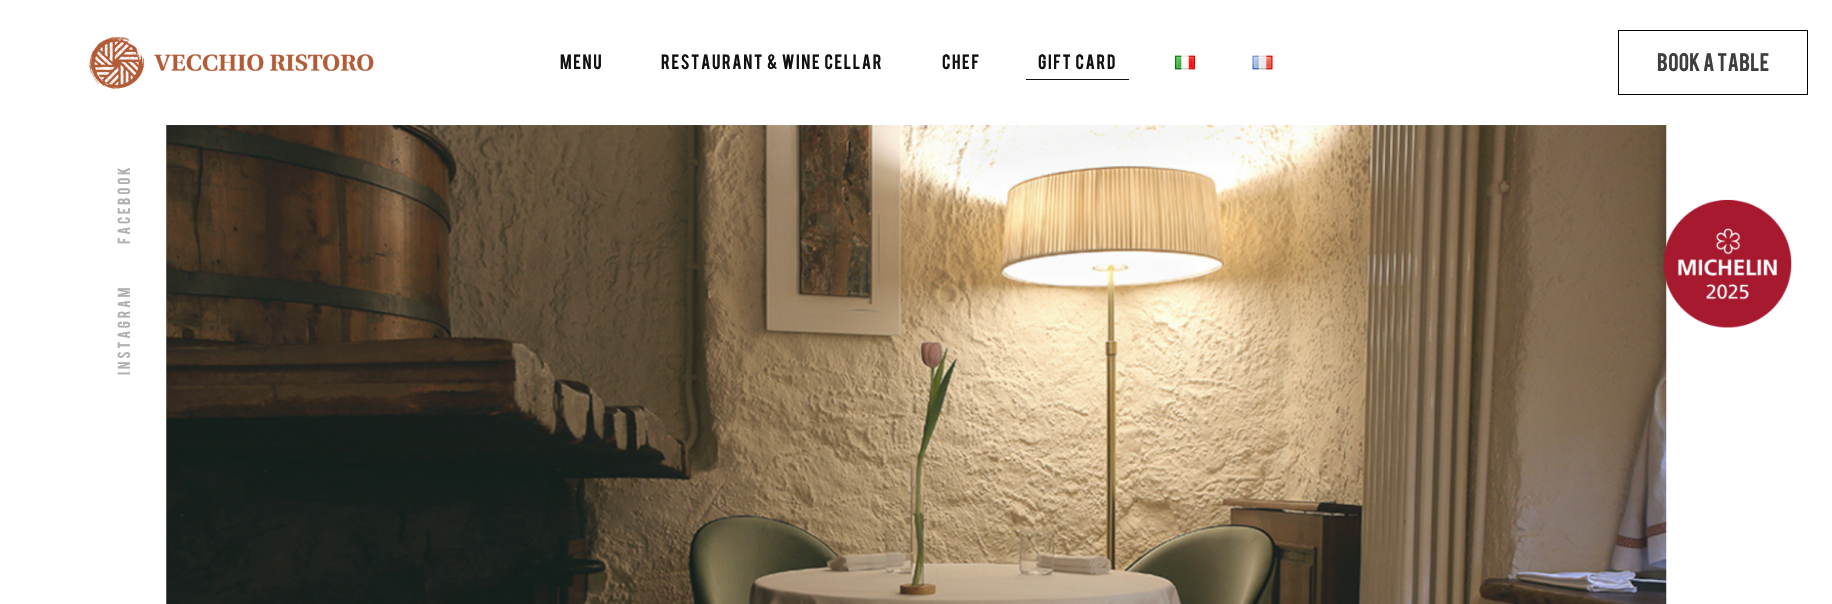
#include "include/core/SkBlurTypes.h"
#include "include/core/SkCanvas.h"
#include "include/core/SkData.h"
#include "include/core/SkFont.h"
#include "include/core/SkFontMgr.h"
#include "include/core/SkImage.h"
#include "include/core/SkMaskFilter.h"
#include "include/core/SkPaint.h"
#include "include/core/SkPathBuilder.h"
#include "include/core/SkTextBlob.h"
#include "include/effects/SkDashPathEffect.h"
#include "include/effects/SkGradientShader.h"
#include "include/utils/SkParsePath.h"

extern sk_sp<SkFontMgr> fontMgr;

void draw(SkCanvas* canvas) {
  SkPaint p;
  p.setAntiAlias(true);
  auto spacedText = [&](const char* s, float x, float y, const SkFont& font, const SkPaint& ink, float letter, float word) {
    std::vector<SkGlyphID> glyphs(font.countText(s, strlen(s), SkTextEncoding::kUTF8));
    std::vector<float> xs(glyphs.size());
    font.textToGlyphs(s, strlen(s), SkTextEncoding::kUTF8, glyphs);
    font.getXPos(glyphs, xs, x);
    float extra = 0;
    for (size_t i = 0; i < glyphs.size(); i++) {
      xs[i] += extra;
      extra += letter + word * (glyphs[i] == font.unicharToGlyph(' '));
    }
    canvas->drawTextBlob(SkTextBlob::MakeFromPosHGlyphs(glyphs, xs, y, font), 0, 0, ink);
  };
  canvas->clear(SK_ColorWHITE);
  canvas->drawImageRect(SkImages::DeferredFromEncodedData(SkData::MakeFromFileName("images/1.png")), SkRect::MakeLTRB(89, 37, 374, 89), SkSamplingOptions());
  p.setColor(SkColorSetRGB(17, 17, 17));
  canvas->drawRect(SkRect::MakeLTRB(1026, 79, 1129, 80), p);
  canvas->drawImageRect(SkImages::DeferredFromEncodedData(SkData::MakeFromFileName("images/2.png")), SkRect::MakeLTRB(1175, 55, 1195, 70), SkSamplingOptions());
  canvas->drawImageRect(SkImages::DeferredFromEncodedData(SkData::MakeFromFileName("images/3.png")), SkRect::MakeLTRB(1252, 55, 1273, 70), SkSamplingOptions());
  p.setStyle(SkPaint::kStroke_Style);
  p.setStrokeWidth(1);
  p.setColor(SK_ColorBLACK);
  canvas->drawRect(SkRect::MakeLTRB(1618.5f, 30.5f, 1807.5f, 94.5f), p);
  canvas->drawImageRect(SkImages::DeferredFromEncodedData(SkData::MakeFromFileName("images/4.png")), SkRect::MakeLTRB(166, 125, 1667, 604), SkSamplingOptions());
  canvas->drawImageRect(SkImages::DeferredFromEncodedData(SkData::MakeFromFileName("images/5.png")), SkRect::MakeLTRB(1663, 199, 1792, 328), SkSamplingOptions());
  SkFont font1(fontMgr->matchFamilyStyle("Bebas", SkFontStyle::Normal()), 16.25f);
  font1.setSubpixel(true);
  p.setStyle(SkPaint::kFill_Style);
  p.setColor(SkColorSetRGB(17, 17, 17));
  spacedText("Menu", 560, 69, font1, p, 1.6f, 0);
  spacedText("Restaurant & Wine cellar", 661, 69, font1, p, 1.6f, 0);
  spacedText("Chef", 942, 69, font1, p, 1.6f, 0);
  spacedText("Gift Card", 1038, 69, font1, p, 1.6f, 0);
  SkFont font2(fontMgr->matchFamilyStyle("Bebas", SkFontStyle::Normal()), 20);
  font2.setSubpixel(true);
  p.setColor(SkColorSetRGB(63, 62, 62));
  spacedText("BOOK A TABLE", 1657, 71, font2, p, 0.25f, 0);
  SkFont font3(fontMgr->matchFamilyStyle("Bebas", SkFontStyle::Normal()), 13.75f);
  font3.setSubpixel(true);
  p.setColor(SkColorSetRGB(176, 176, 176));
  canvas->save();
  canvas->rotate(-90, 130, 244);
  spacedText("Facebook", 130, 244, font3, p, 2.75f, 0);
  canvas->restore();
  canvas->save();
  canvas->rotate(-90, 130, 375);
  spacedText("Instagram", 130, 375, font3, p, 2.75f, 0);
  canvas->restore();
}
